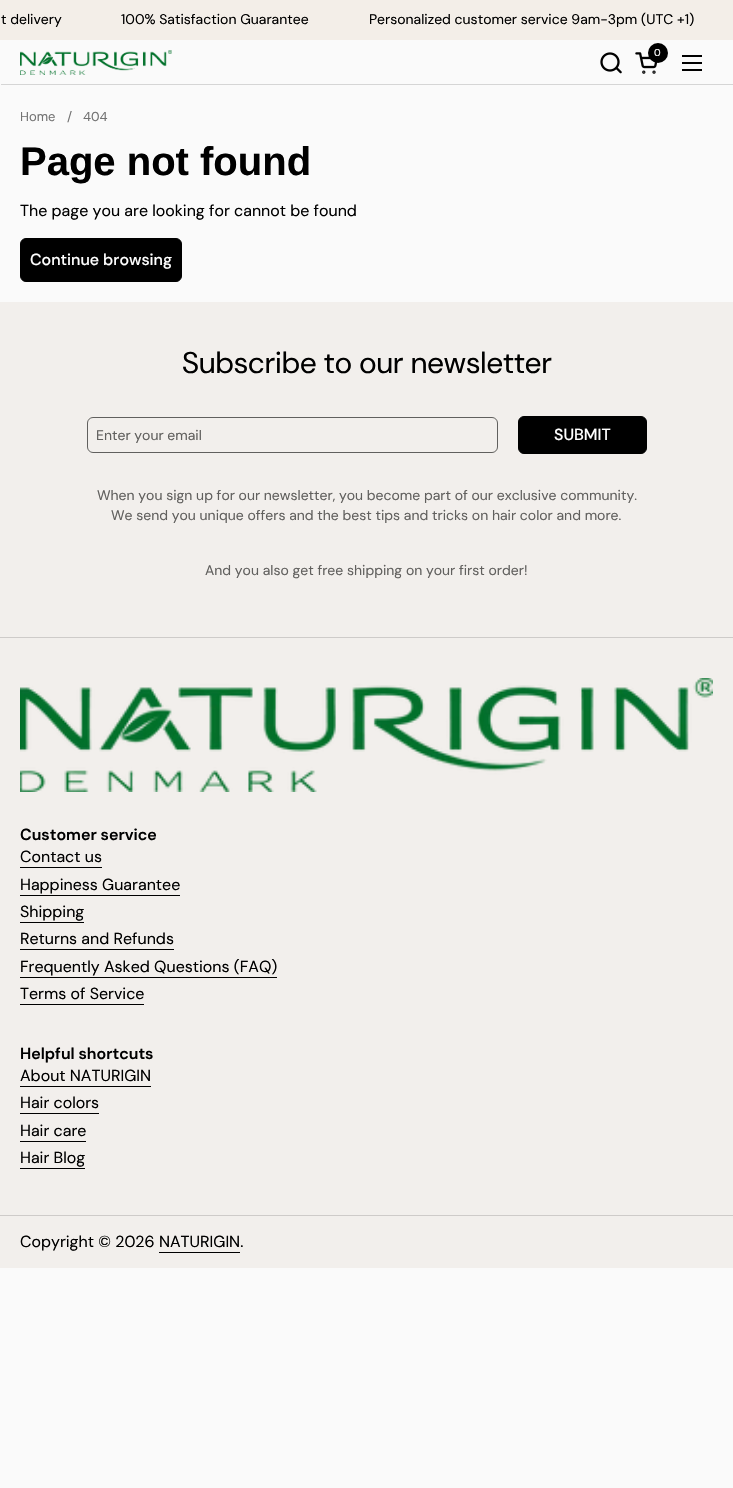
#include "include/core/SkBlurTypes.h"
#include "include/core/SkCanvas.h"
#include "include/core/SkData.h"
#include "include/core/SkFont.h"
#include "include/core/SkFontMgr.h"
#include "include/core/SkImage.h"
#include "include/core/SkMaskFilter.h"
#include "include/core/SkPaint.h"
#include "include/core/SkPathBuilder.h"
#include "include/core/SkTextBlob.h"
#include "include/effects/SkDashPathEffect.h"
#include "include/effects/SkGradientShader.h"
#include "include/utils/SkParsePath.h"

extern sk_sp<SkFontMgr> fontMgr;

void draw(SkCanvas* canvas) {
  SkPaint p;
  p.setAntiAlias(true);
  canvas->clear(SkColorSetRGB(250, 250, 250));
  p.setColor(SkColorSetRGB(243, 238, 232));
  canvas->drawRect(SkRect::MakeLTRB(0, 0, 733, 40), p);
  canvas->drawImageRect(SkImages::DeferredFromEncodedData(SkData::MakeFromFileName("images/1.png")), SkRect::MakeLTRB(20, 50, 172, 75), SkSamplingOptions());
  canvas->drawImageRect(SkImages::DeferredFromEncodedData(SkData::MakeFromFileName("images/2.png")), SkRect::MakeLTRB(600, 52, 622, 74), SkSamplingOptions());
  p.setColor(SK_ColorBLACK);
  canvas->drawCircle(658, 53, 10, p);
  canvas->drawRect(SkRect::MakeLTRB(682, 55, 702, 57), p);
  canvas->drawRect(SkRect::MakeLTRB(682, 62, 702, 64), p);
  canvas->drawRect(SkRect::MakeLTRB(682, 69, 702, 71), p);
  p.setColor(SkColorSetRGB(213, 213, 213));
  canvas->drawRect(SkRect::MakeLTRB(1, 84, 733, 85), p);
  p.setColor(SK_ColorBLACK);
  canvas->drawRoundRect(SkRect::MakeLTRB(20.5f, 238.5f, 181.5f, 281.5f), 5.5f, 5.5f, p);
  p.setStyle(SkPaint::kStroke_Style);
  p.setStrokeWidth(1);
  canvas->drawRoundRect(SkRect::MakeLTRB(20.5f, 238.5f, 181.5f, 281.5f), 5.5f, 5.5f, p);
  p.setStyle(SkPaint::kFill_Style);
  p.setColor(SkColorSetRGB(242, 239, 236));
  canvas->drawRect(SkRect::MakeLTRB(0, 302, 733, 637), p);
  p.setStyle(SkPaint::kStroke_Style);
  p.setColor(SkColorSetRGB(97, 96, 94));
  canvas->drawRoundRect(SkRect::MakeLTRB(87.5f, 417.5f, 497.5f, 452.5f), 5.5f, 5.5f, p);
  p.setStyle(SkPaint::kFill_Style);
  p.setColor(SK_ColorBLACK);
  canvas->drawRoundRect(SkRect::MakeLTRB(518.5f, 416.5f, 646.5f, 453.5f), 5.5f, 5.5f, p);
  p.setStyle(SkPaint::kStroke_Style);
  canvas->drawRoundRect(SkRect::MakeLTRB(518.5f, 416.5f, 646.5f, 453.5f), 5.5f, 5.5f, p);
  p.setStyle(SkPaint::kFill_Style);
  p.setColor(SkColorSetRGB(242, 239, 236));
  canvas->drawRect(SkRect::MakeLTRB(0, 638, 733, 1268), p);
  p.setColor(SkColorSetRGB(206, 203, 201));
  canvas->drawRect(SkRect::MakeLTRB(0, 637, 733, 638), p);
  canvas->drawImageRect(SkImages::DeferredFromEncodedData(SkData::MakeFromFileName("images/4.png")), SkRect::MakeLTRB(20, 678, 713, 792), SkSamplingOptions());
  p.setColor(SK_ColorBLACK);
  canvas->drawRect(SkRect::MakeLTRB(20, 867, 102, 868), p);
  canvas->drawRect(SkRect::MakeLTRB(20, 895, 180, 896), p);
  canvas->drawRect(SkRect::MakeLTRB(20, 922, 84, 923), p);
  canvas->drawRect(SkRect::MakeLTRB(20, 949, 174, 950), p);
  canvas->drawRect(SkRect::MakeLTRB(20, 977, 277, 978), p);
  canvas->drawRect(SkRect::MakeLTRB(20, 1004, 144, 1005), p);
  canvas->drawRect(SkRect::MakeLTRB(20, 1086, 151, 1087), p);
  canvas->drawRect(SkRect::MakeLTRB(20, 1113, 99, 1114), p);
  canvas->drawRect(SkRect::MakeLTRB(20, 1141, 86, 1142), p);
  canvas->drawRect(SkRect::MakeLTRB(20, 1168, 85, 1169), p);
  p.setColor(SkColorSetRGB(206, 203, 201));
  canvas->drawRect(SkRect::MakeLTRB(0, 1215, 733, 1216), p);
  p.setColor(SK_ColorBLACK);
  canvas->drawRect(SkRect::MakeLTRB(159, 1252, 240, 1253), p);
  SkFont font1(fontMgr->matchFamilyStyle("DM Sans", SkFontStyle::Normal()), 14);
  font1.setSubpixel(true);
  canvas->drawString("t delivery", 1, 24, font1, p);
  canvas->drawString("100% Satisfaction Guarantee", 121, 24, font1, p);
  canvas->drawString("Personalized customer service 9am-3pm (UTC +1)", 369, 24, font1, p);
  SkFont font2(fontMgr->matchFamilyStyle("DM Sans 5", SkFontStyle::Normal()), 10);
  font2.setSubpixel(true);
  p.setColor(SK_ColorWHITE);
  canvas->drawString("0", 654, 56, font2, p);
  canvas->drawImageRect(SkImages::DeferredFromEncodedData(SkData::MakeFromFileName("images/3.png")), SkRect::MakeLTRB(635, 52, 657, 74), SkSamplingOptions());
  SkFont font3(fontMgr->matchFamilyStyle("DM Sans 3", SkFontStyle::Normal()), 13);
  font3.setSubpixel(true);
  p.setColor(SkColorSetRGB(115, 115, 115));
  canvas->drawString("Home", 20, 121, font3, p);
  canvas->drawString("/", 67, 121, font3, p);
  canvas->drawString("404", 83, 121, font3, p);
  SkFont font4(fontMgr->matchFamilyStyle("Liberation Sans", SkFontStyle::Bold()), 40);
  font4.setSubpixel(true);
  p.setColor(SK_ColorBLACK);
  canvas->drawString("Page not found", 20, 175, font4, p);
  SkFont font5(fontMgr->matchFamilyStyle("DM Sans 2", SkFontStyle::Normal()), 16);
  font5.setSubpixel(true);
  canvas->drawString("The page you are looking for cannot be found", 20, 216, font5, p);
  SkFont font6(fontMgr->matchFamilyStyle("DM Sans", SkFontStyle(500, SkFontStyle::kNormal_Width, SkFontStyle::kUpright_Slant)), 16);
  font6.setSubpixel(true);
  p.setColor(SK_ColorWHITE);
  canvas->drawString("Continue browsing", 30, 265, font6, p);
  SkFont font7(fontMgr->matchFamilyStyle("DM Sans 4", SkFontStyle::Normal()), 30);
  font7.setSubpixel(true);
  p.setColor(SK_ColorBLACK);
  canvas->drawString("Subscribe to our newsletter", 182, 373, font7, p);
  p.setColor(SkColorSetRGB(97, 96, 94));
  canvas->drawString("Enter your email", 96, 440, font1, p);
  p.setColor(SK_ColorWHITE);
  canvas->drawString("SUBMIT", 554, 440, font6, p);
  p.setColor(SkColorSetRGB(97, 96, 94));
  canvas->drawString("When you sign up for our newsletter, you become part of our exclusive community.", 97, 500, font1, p);
  canvas->drawString("We send you unique offers and the best tips and tricks on hair color and more.", 111, 520, font1, p);
  canvas->drawString("And you also get free shipping on your first order!", 205, 575, font1, p);
  SkFont font8(fontMgr->matchFamilyStyle("DM Sans", SkFontStyle(600, SkFontStyle::kNormal_Width, SkFontStyle::kUpright_Slant)), 16);
  font8.setSubpixel(true);
  p.setColor(SK_ColorBLACK);
  canvas->drawString("Customer service", 20, 840, font8, p);
  canvas->drawString("Contact us", 20, 862, font5, p);
  canvas->drawString("Happiness Guarantee", 20, 890, font5, p);
  canvas->drawString("Shipping", 20, 917, font5, p);
  canvas->drawString("Returns and Refunds", 20, 944, font5, p);
  canvas->drawString("Frequently Asked Questions (FAQ)", 20, 972, font5, p);
  canvas->drawString("Terms of Service", 20, 999, font5, p);
  canvas->drawString("Helpful shortcuts", 20, 1059, font8, p);
  canvas->drawString("About NATURIGIN", 20, 1081, font5, p);
  canvas->drawString("Hair colors", 20, 1108, font5, p);
  canvas->drawString("Hair care", 20, 1136, font5, p);
  canvas->drawString("Hair Blog", 20, 1163, font5, p);
  canvas->drawString("Copyright © 2026 NATURIGIN.", 20, 1247, font5, p);
}
